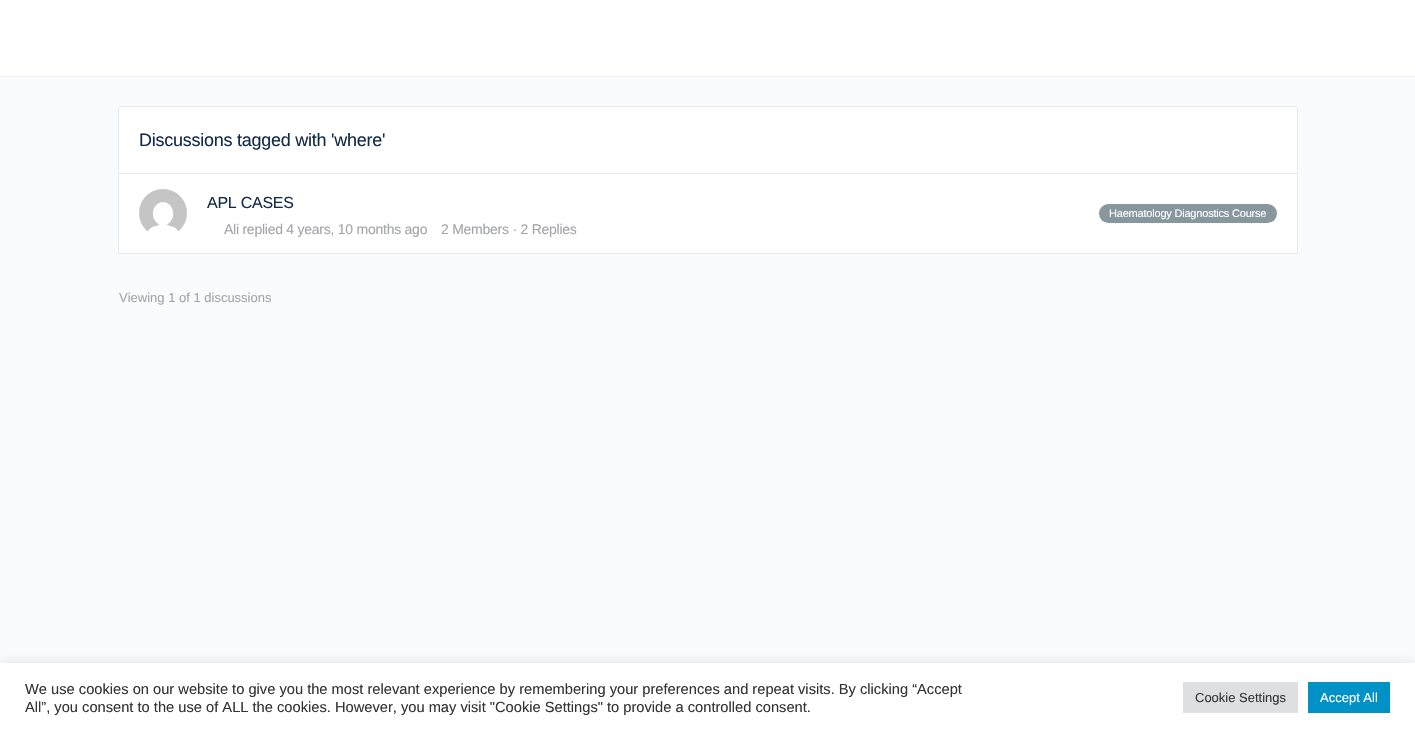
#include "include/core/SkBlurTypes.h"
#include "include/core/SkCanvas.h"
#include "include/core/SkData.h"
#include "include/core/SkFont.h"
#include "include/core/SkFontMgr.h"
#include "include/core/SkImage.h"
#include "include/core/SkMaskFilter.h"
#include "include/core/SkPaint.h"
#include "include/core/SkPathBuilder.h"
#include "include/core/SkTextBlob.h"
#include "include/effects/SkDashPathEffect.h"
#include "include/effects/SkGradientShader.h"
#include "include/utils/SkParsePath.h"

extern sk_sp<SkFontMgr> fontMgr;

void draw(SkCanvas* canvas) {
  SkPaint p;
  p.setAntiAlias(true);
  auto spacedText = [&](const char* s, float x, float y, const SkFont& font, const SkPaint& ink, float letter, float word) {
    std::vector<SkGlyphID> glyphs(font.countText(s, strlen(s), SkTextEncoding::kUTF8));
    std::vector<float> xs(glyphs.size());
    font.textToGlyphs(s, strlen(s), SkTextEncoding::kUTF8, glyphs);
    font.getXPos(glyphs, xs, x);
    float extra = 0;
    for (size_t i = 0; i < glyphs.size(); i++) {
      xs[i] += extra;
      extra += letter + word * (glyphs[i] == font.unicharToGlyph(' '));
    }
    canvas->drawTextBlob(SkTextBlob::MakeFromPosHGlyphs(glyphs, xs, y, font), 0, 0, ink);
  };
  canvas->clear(SkColorSetRGB(250, 251, 253));
  p.setColor(SkColorSetRGB(242, 243, 246));
  canvas->drawRect(SkRect::MakeLTRB(0, 76, 1415, 77), p);
  p.setColor(SK_ColorWHITE);
  canvas->drawRect(SkRect::MakeLTRB(0, 0, 1415, 76), p);
  canvas->drawPath(SkPathBuilder().moveTo(122, 106.5f).lineTo(1294, 106.5f).cubicTo(1296, 106.5f, 1297.5f, 108, 1297.5f, 110).lineTo(1297.5f, 173.5f).lineTo(118.5f, 173.5f).lineTo(118.5f, 110).cubicTo(118.5f, 108, 120, 106.5f, 122, 106.5f).close().detach(), p);
  p.setStyle(SkPaint::kStroke_Style);
  p.setStrokeWidth(1);
  p.setColor(SkColorSetRGB(231, 233, 236));
  canvas->drawPath(SkPathBuilder().moveTo(122, 106.5f).lineTo(1294, 106.5f).cubicTo(1296, 106.5f, 1297.5f, 108, 1297.5f, 110).lineTo(1297.5f, 173.5f).lineTo(118.5f, 173.5f).lineTo(118.5f, 110).cubicTo(118.5f, 108, 120, 106.5f, 122, 106.5f).close().detach(), p);
  p.setStyle(SkPaint::kFill_Style);
  p.setColor(SK_ColorWHITE);
  canvas->drawRect(SkRect::MakeLTRB(119, 174, 1297, 253), p);
  p.setColor(SkColorSetRGB(231, 233, 236));
  canvas->drawRect(SkRect::MakeLTRB(1297, 174, 1298, 254), p);
  canvas->drawRect(SkRect::MakeLTRB(118, 253, 1298, 254), p);
  canvas->drawRect(SkRect::MakeLTRB(118, 174, 119, 254), p);
  canvas->drawImageRect(SkImages::DeferredFromEncodedData(SkData::MakeFromFileName("images/1.png")), SkRect::MakeLTRB(139, 189, 187, 232), SkSamplingOptions());
  p.setColor(SkColorSetRGB(136, 151, 158));
  canvas->drawRoundRect(SkRect::MakeLTRB(1099, 204, 1277, 223), 9.5f, 9.5f, p);
  p.setColor(SkColorSetARGB(77, 172, 171, 171));
  p.setMaskFilter(SkMaskFilter::MakeBlur(kNormal_SkBlurStyle, 5));
  canvas->drawRect(SkRect::MakeLTRB(0, 662, 1415, 731), p);
  p.setMaskFilter(nullptr);
  p.setColor(SK_ColorWHITE);
  canvas->drawRect(SkRect::MakeLTRB(0, 663, 1415, 732), p);
  p.setColor(SkColorSetRGB(222, 223, 224));
  canvas->drawRect(SkRect::MakeLTRB(1183, 682, 1298, 713), p);
  p.setColor(SkColorSetRGB(0, 145, 198));
  canvas->drawRect(SkRect::MakeLTRB(1308, 682, 1390, 713), p);
  SkFont font1(fontMgr->matchFamilyStyle("Liberation Sans", SkFontStyle::Normal()), 18);
  font1.setSubpixel(true);
  p.setColor(SkColorSetRGB(18, 43, 70));
  spacedText("Discussions tagged with 'where'", 139, 146, font1, p, -0.25f, 0);
  SkFont font2(fontMgr->matchFamilyStyle("Liberation Sans", SkFontStyle::Normal()), 16);
  font2.setSubpixel(true);
  spacedText("APL CASES", 207, 208, font2, p, -0.25f, 0);
  SkFont font3(fontMgr->matchFamilyStyle("Liberation Sans", SkFontStyle::Normal()), 14);
  font3.setSubpixel(true);
  p.setColor(SkColorSetRGB(163, 165, 169));
  spacedText("Ali replied 4 years, 10 months ago", 224, 234, font3, p, -0.25f, 0);
  spacedText("2 Members · 2 Replies", 441, 234, font3, p, -0.25f, 0);
  SkFont font4(fontMgr->matchFamilyStyle("Liberation Sans", SkFontStyle::Normal()), 11);
  font4.setSubpixel(true);
  p.setColor(SK_ColorWHITE);
  spacedText("Haematology Diagnostics Course", 1109, 217, font4, p, -0.2f, 0);
  SkFont font5(fontMgr->matchFamilyStyle("Liberation Sans", SkFontStyle::Normal()), 13);
  font5.setSubpixel(true);
  p.setColor(SkColorSetRGB(163, 165, 169));
  canvas->drawString("Viewing 1 of 1 discussions", 119, 302, font5, p);
  SkFont font6(fontMgr->matchFamilyStyle("Liberation Sans", SkFontStyle::Normal()), 14.67f);
  font6.setSubpixel(true);
  p.setColor(SkColorSetRGB(51, 51, 51));
  canvas->drawString("We use cookies on our website to give you the most relevant experience by remembering your preferences and repeat visits. By clicking “Accept", 25, 694, font6, p);
  canvas->drawString("All”, you consent to the use of ALL the cookies. However, you may visit \"Cookie Settings\" to provide a controlled consent.", 25, 712, font6, p);
  canvas->drawString("Cookie Settings", 1195, 702, font5, p);
  p.setColor(SK_ColorWHITE);
  canvas->drawString("Accept All", 1320, 702, font5, p);
}
